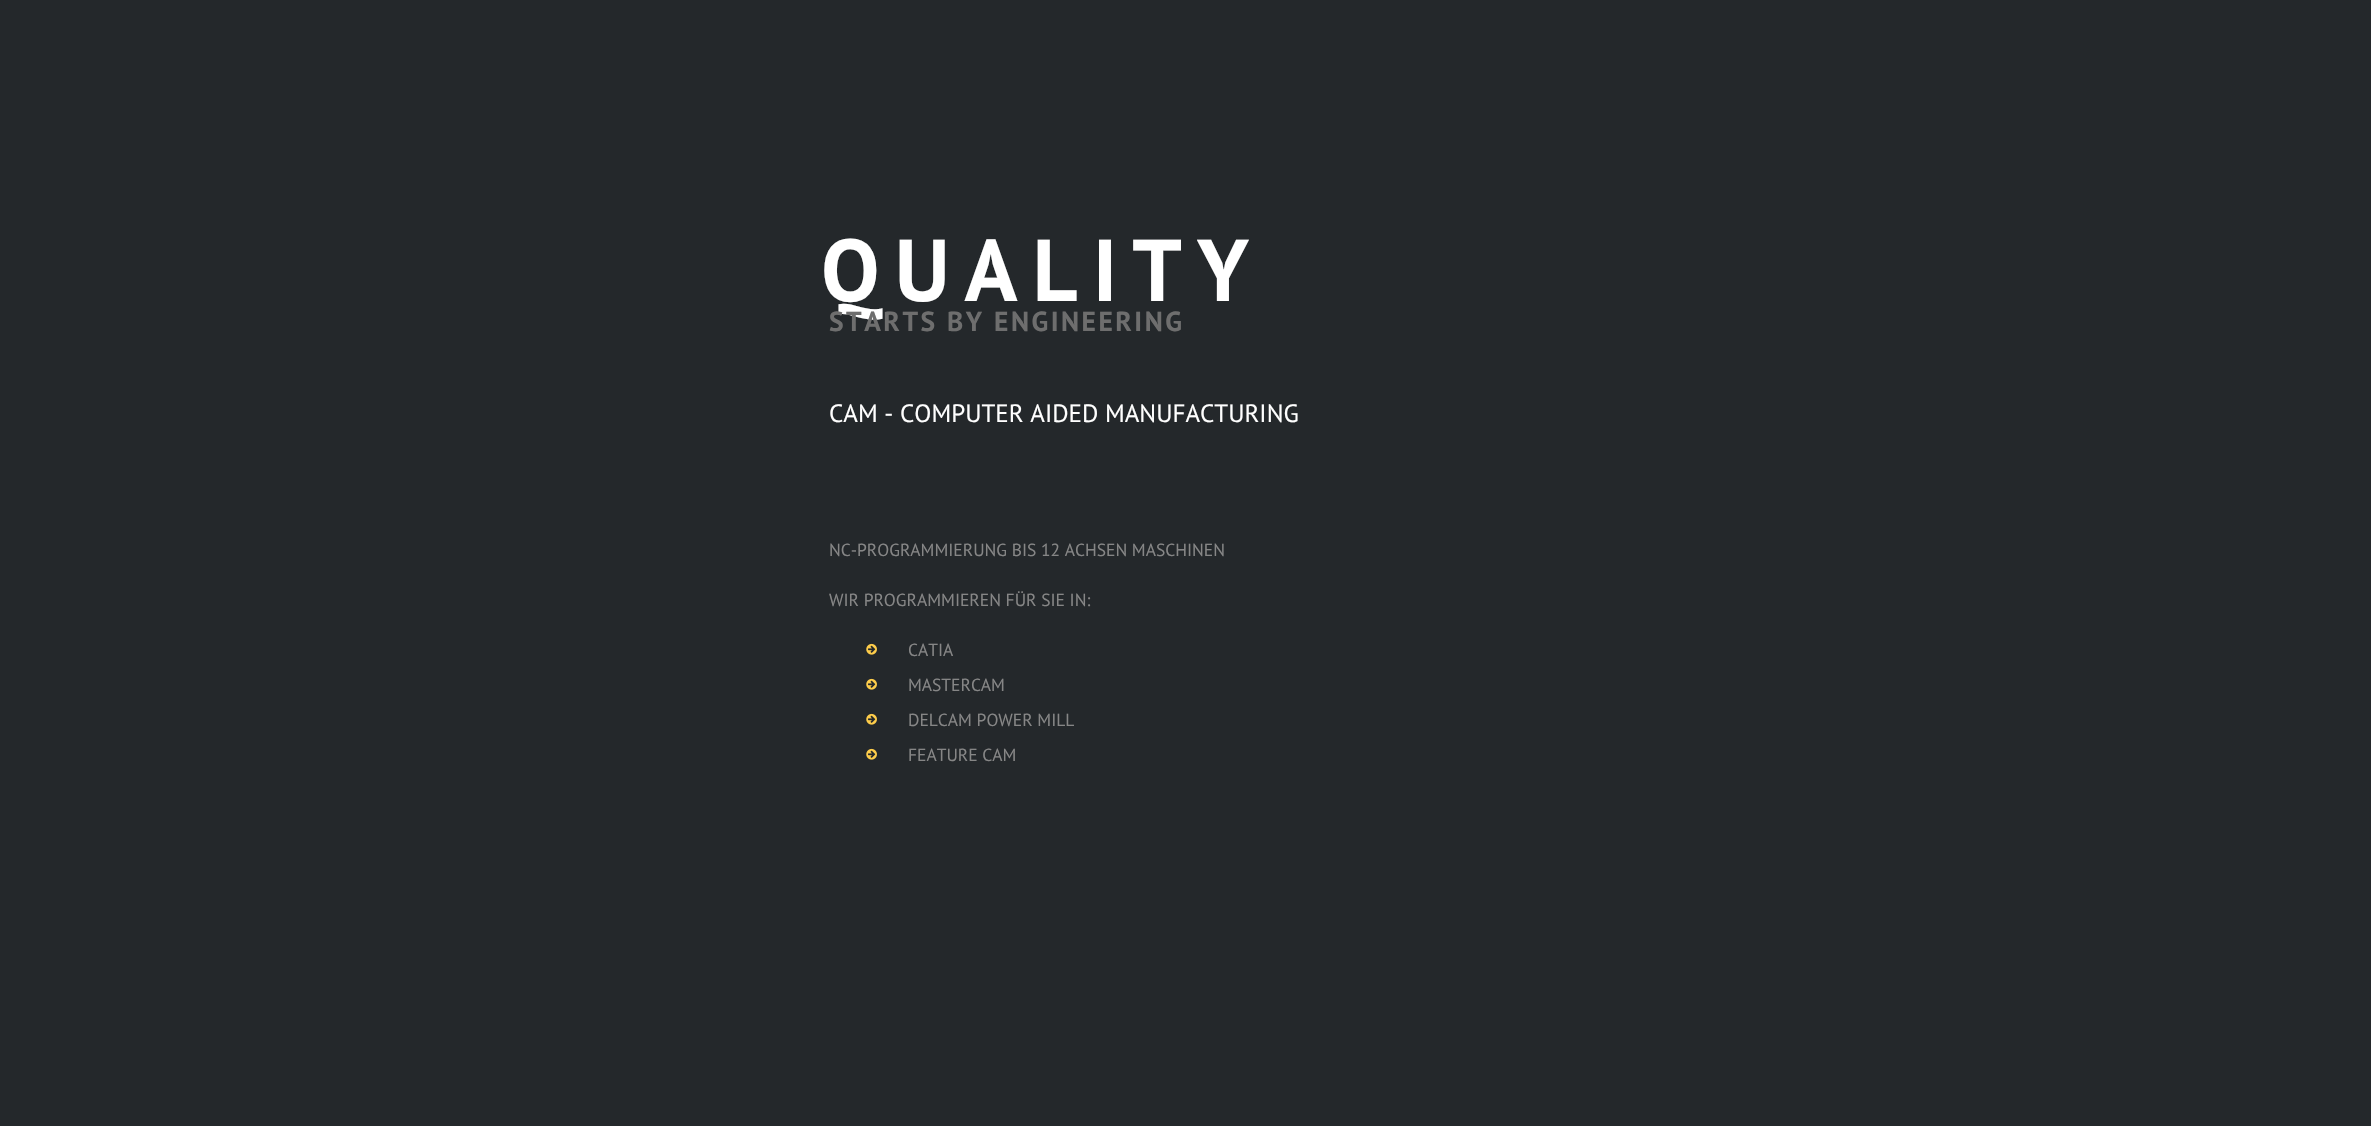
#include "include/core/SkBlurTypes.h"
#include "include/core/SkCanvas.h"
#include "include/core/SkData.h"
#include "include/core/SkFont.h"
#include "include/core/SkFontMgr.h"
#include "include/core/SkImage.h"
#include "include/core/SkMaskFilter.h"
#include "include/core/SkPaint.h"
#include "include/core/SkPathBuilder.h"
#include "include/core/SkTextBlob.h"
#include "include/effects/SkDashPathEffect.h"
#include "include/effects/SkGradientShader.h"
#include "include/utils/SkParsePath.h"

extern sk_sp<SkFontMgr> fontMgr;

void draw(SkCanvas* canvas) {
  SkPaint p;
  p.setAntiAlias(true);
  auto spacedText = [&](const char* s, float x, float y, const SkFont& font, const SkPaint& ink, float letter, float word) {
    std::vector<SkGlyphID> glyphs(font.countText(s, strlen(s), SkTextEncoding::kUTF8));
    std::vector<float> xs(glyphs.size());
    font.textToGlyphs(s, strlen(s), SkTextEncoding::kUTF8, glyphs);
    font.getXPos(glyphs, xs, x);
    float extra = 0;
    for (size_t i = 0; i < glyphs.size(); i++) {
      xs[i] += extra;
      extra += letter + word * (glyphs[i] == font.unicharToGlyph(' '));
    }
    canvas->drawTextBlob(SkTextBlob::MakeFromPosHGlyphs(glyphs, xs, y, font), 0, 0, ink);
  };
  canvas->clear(SkColorSetRGB(36, 40, 43));
  canvas->drawImageRect(SkImages::DeferredFromEncodedData(SkData::MakeFromFileName("images/1.png")), SkRect::MakeLTRB(866, 643, 877, 655), SkSamplingOptions());
  canvas->drawImageRect(SkImages::DeferredFromEncodedData(SkData::MakeFromFileName("images/1.png")), SkRect::MakeLTRB(866, 678, 877, 690), SkSamplingOptions());
  canvas->drawImageRect(SkImages::DeferredFromEncodedData(SkData::MakeFromFileName("images/1.png")), SkRect::MakeLTRB(866, 713, 877, 725), SkSamplingOptions());
  canvas->drawImageRect(SkImages::DeferredFromEncodedData(SkData::MakeFromFileName("images/1.png")), SkRect::MakeLTRB(866, 748, 877, 760), SkSamplingOptions());
  SkFont font1(fontMgr->matchFamilyStyle("PT Sans", SkFontStyle::Bold()), 87.5f);
  font1.setSubpixel(true);
  p.setColor(SK_ColorWHITE);
  spacedText("QUALITY", 821, 301, font1, p, 15, 0);
  SkFont font2(fontMgr->matchFamilyStyle("PT Sans", SkFontStyle::Bold()), 27.5f);
  font2.setSubpixel(true);
  p.setColor(SkColorSetRGB(110, 110, 110));
  spacedText("STARTS BY ENGINEERING", 829, 331, font2, p, 2.5f, 0);
  SkFont font3(fontMgr->matchFamilyStyle("PT Sans", SkFontStyle::Normal()), 25);
  font3.setSubpixel(true);
  p.setColor(SK_ColorWHITE);
  canvas->drawString("CAM - COMPUTER AIDED MANUFACTURING", 829, 422, font3, p);
  SkFont font4(fontMgr->matchFamilyStyle("PT Sans", SkFontStyle::Normal()), 17.5f);
  font4.setSubpixel(true);
  p.setColor(SkColorSetRGB(134, 134, 134));
  canvas->drawString("NC-PROGRAMMIERUNG BIS 12 ACHSEN MASCHINEN", 829, 556, font4, p);
  canvas->drawString("WIR PROGRAMMIEREN FÜR SIE IN:", 829, 606, font4, p);
  canvas->drawString("CATIA", 908, 656, font4, p);
  canvas->drawString("MASTERCAM", 908, 691, font4, p);
  canvas->drawString("DELCAM POWER MILL", 908, 726, font4, p);
  canvas->drawString("FEATURE CAM", 908, 761, font4, p);
}
